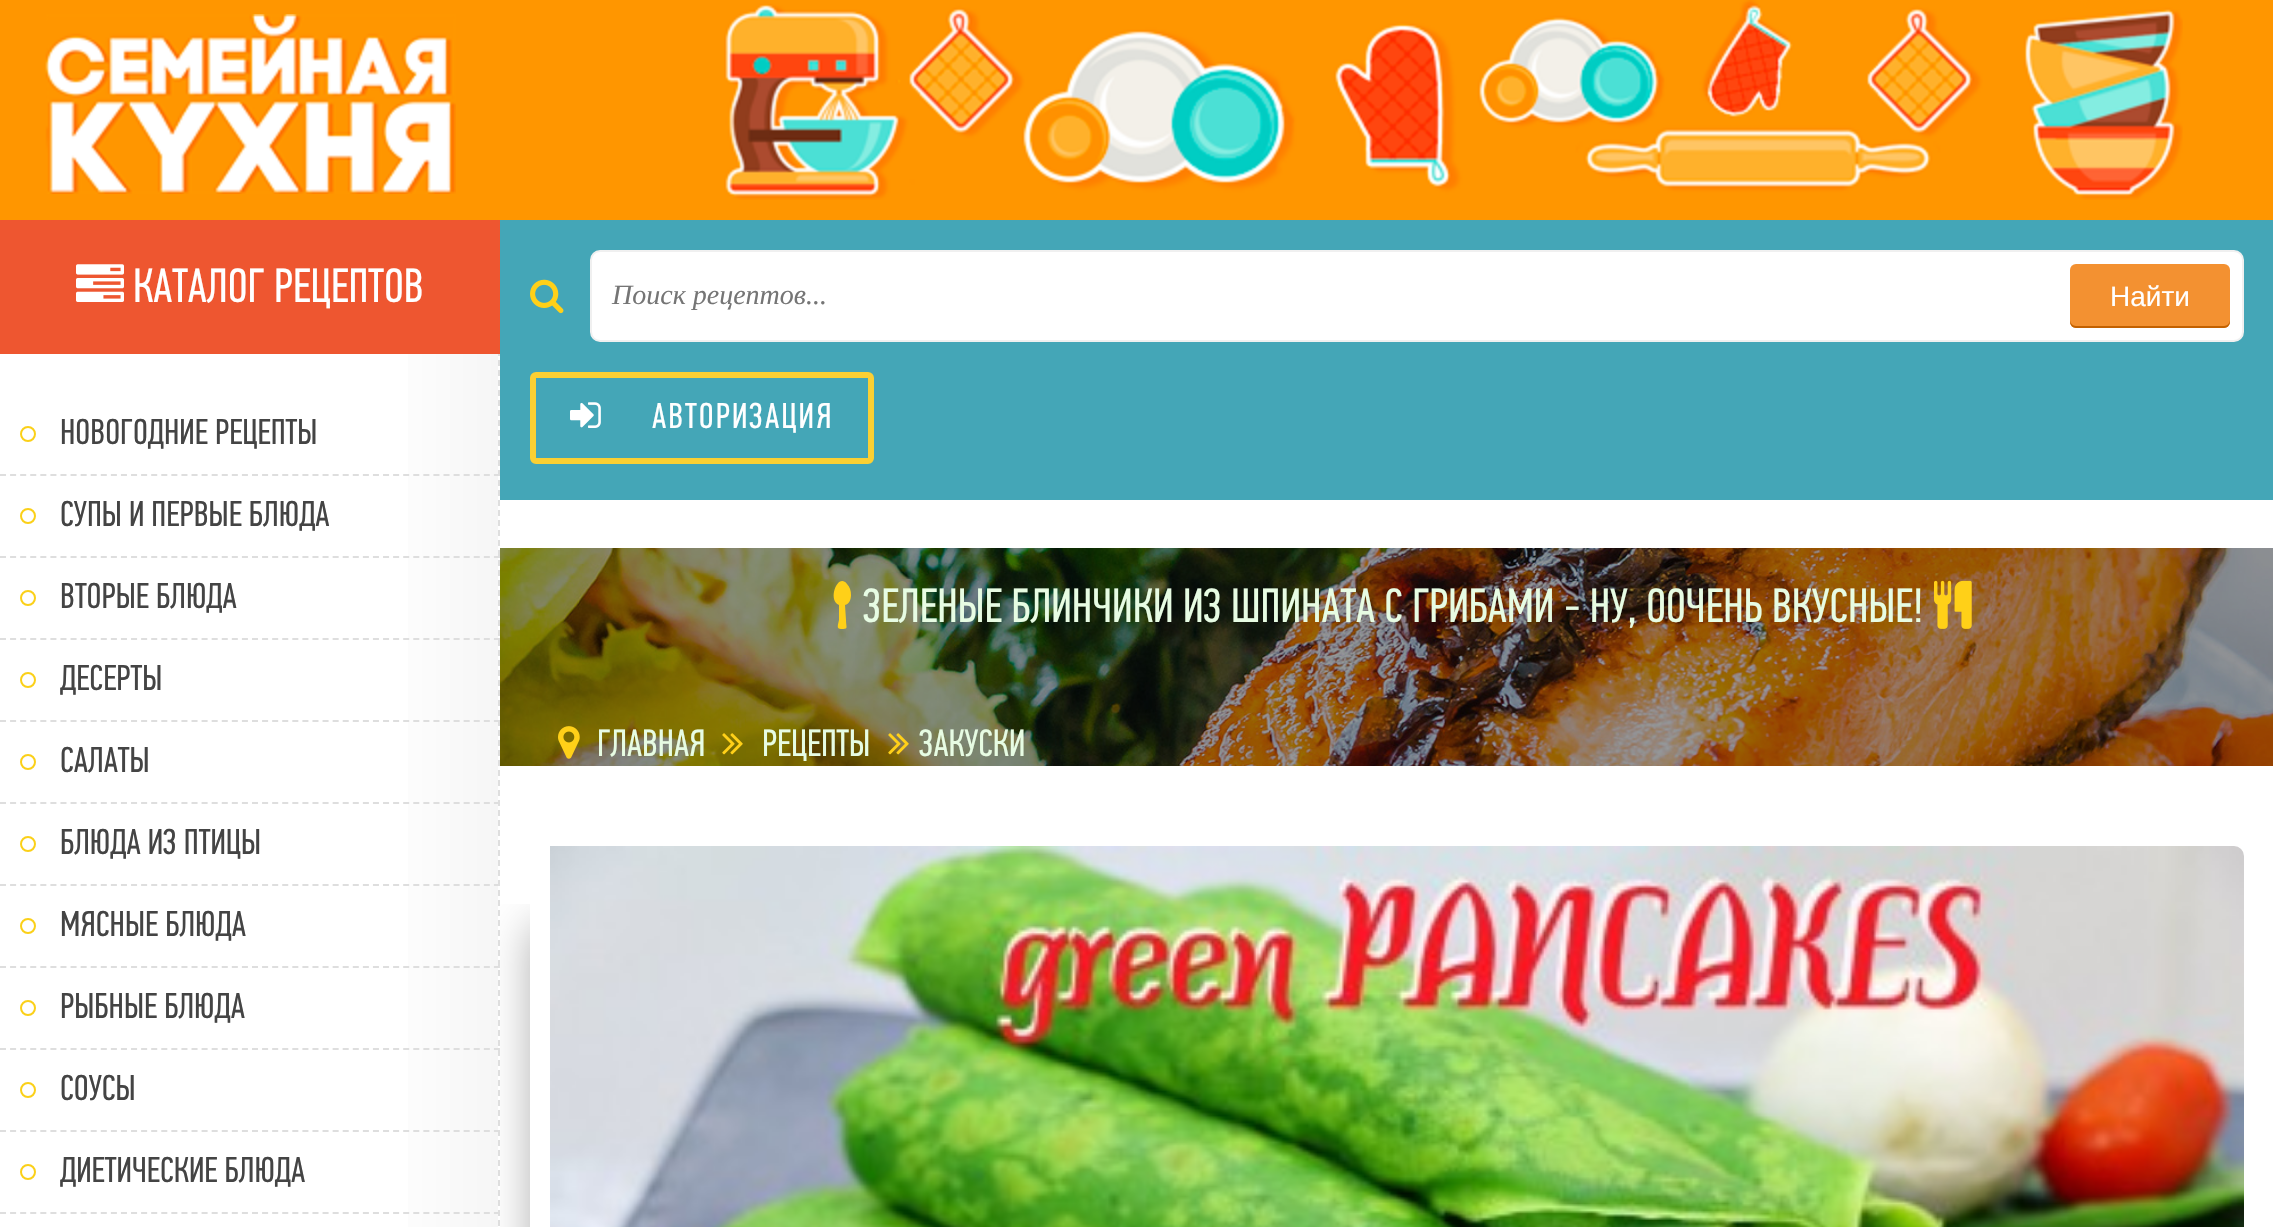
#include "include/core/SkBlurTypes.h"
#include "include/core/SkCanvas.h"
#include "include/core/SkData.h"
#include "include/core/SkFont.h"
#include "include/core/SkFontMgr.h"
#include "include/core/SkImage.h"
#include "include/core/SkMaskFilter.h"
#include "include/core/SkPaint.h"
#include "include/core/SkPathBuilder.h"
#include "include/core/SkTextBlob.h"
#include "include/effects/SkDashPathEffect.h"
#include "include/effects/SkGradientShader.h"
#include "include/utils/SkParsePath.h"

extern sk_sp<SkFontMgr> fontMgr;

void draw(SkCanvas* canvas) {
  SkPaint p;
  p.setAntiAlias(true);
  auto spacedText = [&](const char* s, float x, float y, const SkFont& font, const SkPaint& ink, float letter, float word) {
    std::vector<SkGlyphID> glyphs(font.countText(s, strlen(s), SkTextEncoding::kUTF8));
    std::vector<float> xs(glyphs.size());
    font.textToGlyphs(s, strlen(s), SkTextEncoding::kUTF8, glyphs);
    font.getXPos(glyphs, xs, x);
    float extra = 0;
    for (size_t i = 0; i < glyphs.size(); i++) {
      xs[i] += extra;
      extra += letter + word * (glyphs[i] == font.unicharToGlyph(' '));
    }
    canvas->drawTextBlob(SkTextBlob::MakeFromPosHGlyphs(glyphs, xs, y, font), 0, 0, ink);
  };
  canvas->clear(SK_ColorWHITE);
  p.setStyle(SkPaint::kStroke_Style);
  p.setStrokeWidth(2);
  p.setColor(SkColorSetRGB(222, 222, 222));
  p.setPathEffect(SkDashPathEffect::Make({{6, 4}}, 0));
  canvas->drawPath(SkPathBuilder().moveTo(499, 0).lineTo(499, 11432).detach(), p);
  p.setPathEffect(nullptr);
  p.setStyle(SkPaint::kFill_Style);
  p.setColor(SkColorSetRGB(255, 150, 0));
  canvas->drawRect(SkRect::MakeLTRB(0, 0, 2273, 220), p);
  canvas->drawImageRect(SkImages::DeferredFromEncodedData(SkData::MakeFromFileName("images/1.png")), SkRect::MakeLTRB(45, 14, 456, 194), SkSamplingOptions());
  p.setColor(SkColorSetRGB(238, 86, 48));
  canvas->drawRect(SkRect::MakeLTRB(0, 220, 500, 354), p);
  canvas->drawImageRect(SkImages::DeferredFromEncodedData(SkData::MakeFromFileName("images/2.png")), SkRect::MakeLTRB(76, 264, 124, 302), SkSamplingOptions());
  {
    const SkColor colors[] = {SK_ColorWHITE, SkColorSetRGB(246, 246, 246)};
    const float stops[] = {0.75f, 1};
    const SkPoint ends[] = {{0, 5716}, {498, 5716}};
    p.setShader(SkGradientShader::MakeLinear(ends, colors, stops, 2, SkTileMode::kClamp));
    p.setAlpha(255);
  }
  canvas->drawRect(SkRect::MakeLTRB(408, 354, 498, 1227), p);
  p.setStyle(SkPaint::kStroke_Style);
  p.setShader(nullptr);
  p.setColor(SkColorSetRGB(222, 222, 222));
  p.setPathEffect(SkDashPathEffect::Make({{6, 4.08f}}, 0));
  canvas->drawPath(SkPathBuilder().moveTo(0, 475).lineTo(500, 475).detach(), p);
  p.setPathEffect(nullptr);
  p.setColor(SkColorSetRGB(251, 208, 24));
  canvas->drawCircle(28, 434, 7, p);
  p.setColor(SkColorSetRGB(222, 222, 222));
  p.setPathEffect(SkDashPathEffect::Make({{6, 4.08f}}, 0));
  canvas->drawPath(SkPathBuilder().moveTo(0, 557).lineTo(500, 557).detach(), p);
  p.setPathEffect(nullptr);
  p.setColor(SkColorSetRGB(251, 208, 24));
  canvas->drawCircle(28, 516, 7, p);
  p.setColor(SkColorSetRGB(222, 222, 222));
  p.setPathEffect(SkDashPathEffect::Make({{6, 4.08f}}, 0));
  canvas->drawPath(SkPathBuilder().moveTo(0, 639).lineTo(500, 639).detach(), p);
  p.setPathEffect(nullptr);
  p.setColor(SkColorSetRGB(251, 208, 24));
  canvas->drawCircle(28, 598, 7, p);
  p.setColor(SkColorSetRGB(222, 222, 222));
  p.setPathEffect(SkDashPathEffect::Make({{6, 4.08f}}, 0));
  canvas->drawPath(SkPathBuilder().moveTo(0, 721).lineTo(500, 721).detach(), p);
  p.setPathEffect(nullptr);
  p.setColor(SkColorSetRGB(251, 208, 24));
  canvas->drawCircle(28, 680, 7, p);
  p.setColor(SkColorSetRGB(222, 222, 222));
  p.setPathEffect(SkDashPathEffect::Make({{6, 4.08f}}, 0));
  canvas->drawPath(SkPathBuilder().moveTo(0, 803).lineTo(500, 803).detach(), p);
  p.setPathEffect(nullptr);
  p.setColor(SkColorSetRGB(251, 208, 24));
  canvas->drawCircle(28, 762, 7, p);
  canvas->save();
  canvas->clipRect(SkRect::MakeLTRB(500, 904, 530, 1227));
  p.setStyle(SkPaint::kFill_Style);
  p.setColor(SkColorSetARGB(77, 0, 0, 0));
  p.setMaskFilter(SkMaskFilter::MakeBlur(kNormal_SkBlurStyle, 20));
  canvas->drawRect(SkRect::MakeLTRB(530, 926, 2164, 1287), p);
  p.setMaskFilter(nullptr);
  canvas->restore();
  p.setStyle(SkPaint::kStroke_Style);
  p.setColor(SkColorSetRGB(222, 222, 222));
  p.setPathEffect(SkDashPathEffect::Make({{6, 4.08f}}, 0));
  canvas->drawPath(SkPathBuilder().moveTo(0, 885).lineTo(500, 885).detach(), p);
  p.setPathEffect(nullptr);
  p.setColor(SkColorSetRGB(251, 208, 24));
  canvas->drawCircle(28, 844, 7, p);
  p.setColor(SkColorSetRGB(222, 222, 222));
  p.setPathEffect(SkDashPathEffect::Make({{6, 4.08f}}, 0));
  canvas->drawPath(SkPathBuilder().moveTo(0, 967).lineTo(500, 967).detach(), p);
  p.setPathEffect(nullptr);
  p.setColor(SkColorSetRGB(251, 208, 24));
  canvas->drawCircle(28, 926, 7, p);
  p.setColor(SkColorSetRGB(222, 222, 222));
  p.setPathEffect(SkDashPathEffect::Make({{6, 4.08f}}, 0));
  canvas->drawPath(SkPathBuilder().moveTo(0, 1049).lineTo(500, 1049).detach(), p);
  p.setPathEffect(nullptr);
  p.setColor(SkColorSetRGB(251, 208, 24));
  canvas->drawCircle(28, 1008, 7, p);
  p.setColor(SkColorSetRGB(222, 222, 222));
  p.setPathEffect(SkDashPathEffect::Make({{6, 4.08f}}, 0));
  canvas->drawPath(SkPathBuilder().moveTo(0, 1131).lineTo(500, 1131).detach(), p);
  p.setPathEffect(nullptr);
  p.setColor(SkColorSetRGB(251, 208, 24));
  canvas->drawCircle(28, 1090, 7, p);
  p.setColor(SkColorSetRGB(222, 222, 222));
  p.setPathEffect(SkDashPathEffect::Make({{6, 4.08f}}, 0));
  canvas->drawPath(SkPathBuilder().moveTo(0, 1213).lineTo(500, 1213).detach(), p);
  p.setPathEffect(nullptr);
  p.setColor(SkColorSetRGB(251, 208, 24));
  canvas->drawCircle(28, 1172, 7, p);
  canvas->drawImageRect(SkImages::DeferredFromEncodedData(SkData::MakeFromFileName("images/3.png")), SkRect::MakeLTRB(724, 0, 2183, 200), SkSamplingOptions());
  p.setStyle(SkPaint::kFill_Style);
  p.setColor(SkColorSetRGB(68, 166, 183));
  canvas->drawRect(SkRect::MakeLTRB(500, 220, 2273, 500), p);
  canvas->drawImageRect(SkImages::DeferredFromEncodedData(SkData::MakeFromFileName("images/4.png")), SkRect::MakeLTRB(530, 279, 564, 314), SkSamplingOptions());
  p.setColor(SK_ColorWHITE);
  canvas->drawRoundRect(SkRect::MakeLTRB(591, 251, 2243, 341), 9, 9, p);
  p.setStyle(SkPaint::kStroke_Style);
  p.setColor(SkColorSetRGB(240, 240, 240));
  canvas->drawRoundRect(SkRect::MakeLTRB(591, 251, 2243, 341), 9, 9, p);
  p.setStyle(SkPaint::kFill_Style);
  p.setColor(SkColorSetRGB(243, 145, 49));
  canvas->drawRoundRect(SkRect::MakeLTRB(2070, 264, 2230, 328), 6, 6, p);
  p.setColor(SkColorSetRGB(195, 97, 0));
  canvas->drawPath(SkPathBuilder().moveTo(2070, 320).lineTo(2070, 322).cubicTo(2070, 325, 2073, 328, 2076, 328).lineTo(2224, 328).cubicTo(2227, 328, 2230, 325, 2230, 322).lineTo(2230, 320).cubicTo(2230, 323, 2227, 326, 2224, 326).lineTo(2076, 326).cubicTo(2073, 326, 2070, 323, 2070, 320).close().detach(), p);
  p.setStyle(SkPaint::kStroke_Style);
  p.setStrokeWidth(6);
  p.setColor(SkColorSetRGB(251, 208, 51));
  canvas->drawRoundRect(SkRect::MakeLTRB(533, 375, 871, 461), 3, 3, p);
  canvas->drawImageRect(SkImages::DeferredFromEncodedData(SkData::MakeFromFileName("images/5.png")), SkRect::MakeLTRB(570, 402, 601, 428), SkSamplingOptions());
  canvas->drawImageRect(SkImages::DeferredFromEncodedData(SkData::MakeFromFileName("images/6.png")), SkRect::MakeLTRB(500, 548, 2273, 766), SkSamplingOptions());
  p.setStyle(SkPaint::kFill_Style);
  p.setColor(SkColorSetRGB(255, 208, 24));
  canvas->drawPath(SkPathBuilder().moveTo(851, 595).cubicTo(851, 591, 850, 587, 847, 584).cubicTo(838, 572, 827, 600, 839, 605).lineTo(839, 620).cubicTo(838, 625, 836, 629, 841, 629).cubicTo(849, 629, 846, 628, 846, 620).lineTo(845, 605).cubicTo(849, 604, 851, 600, 851, 595).close().detach(), p);
  canvas->drawImageRect(SkImages::DeferredFromEncodedData(SkData::MakeFromFileName("images/7.png")), SkRect::MakeLTRB(1934, 580, 1972, 629), SkSamplingOptions());
  canvas->drawImageRect(SkImages::DeferredFromEncodedData(SkData::MakeFromFileName("images/8.png")), SkRect::MakeLTRB(558, 726, 580, 759), SkSamplingOptions());
  canvas->drawImageRect(SkImages::DeferredFromEncodedData(SkData::MakeFromFileName("images/9.png")), SkRect::MakeLTRB(722, 733, 743, 755), SkSamplingOptions());
  canvas->drawImageRect(SkImages::DeferredFromEncodedData(SkData::MakeFromFileName("images/10.png")), SkRect::MakeLTRB(888, 733, 909, 755), SkSamplingOptions());
  canvas->drawImageRect(SkImages::DeferredFromEncodedData(SkData::MakeFromFileName("images/11.png")), SkRect::MakeLTRB(550, 846, 2244, 1227), SkSamplingOptions());
  SkFont font1(fontMgr->matchFamilyStyle("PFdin", SkFontStyle::Normal()), 48);
  font1.setSubpixel(true);
  p.setColor(SK_ColorWHITE);
  canvas->drawString("КАТАЛОГ РЕЦЕПТОВ", 133, 302, font1, p);
  SkFont font2(fontMgr->matchFamilyStyle("PFdin", SkFontStyle::Normal()), 36);
  font2.setSubpixel(true);
  p.setColor(SkColorSetRGB(68, 68, 68));
  canvas->drawString("НОВОГОДНИЕ РЕЦЕПТЫ", 60, 444, font2, p);
  canvas->drawString("СУПЫ И ПЕРВЫЕ БЛЮДА", 60, 526, font2, p);
  canvas->drawString("ВТОРЫЕ БЛЮДА", 60, 608, font2, p);
  canvas->drawString("ДЕСЕРТЫ", 60, 690, font2, p);
  canvas->drawString("САЛАТЫ", 60, 772, font2, p);
  canvas->drawString("БЛЮДА ИЗ ПТИЦЫ", 60, 854, font2, p);
  canvas->drawString("МЯСНЫЕ БЛЮДА", 60, 936, font2, p);
  canvas->drawString("РЫБНЫЕ БЛЮДА", 60, 1018, font2, p);
  canvas->drawString("СОУСЫ", 60, 1100, font2, p);
  canvas->drawString("ДИЕТИЧЕСКИЕ БЛЮДА", 60, 1182, font2, p);
  SkFont font3(fontMgr->matchFamilyStyle("Liberation Serif", SkFontStyle::Italic()), 28);
  font3.setSubpixel(true);
  p.setColor(SkColorSetRGB(117, 117, 117));
  canvas->drawString("Поиск рецептов...", 612, 304, font3, p);
  SkFont font4(fontMgr->matchFamilyStyle("Liberation Sans", SkFontStyle::Normal()), 28);
  font4.setSubpixel(true);
  p.setColor(SK_ColorWHITE);
  canvas->drawString("Найти", 2110, 306, font4, p);
  spacedText("АВТОРИЗАЦИЯ", 652, 428, font2, p, 2, 0);
  p.setColor(SkColorSetRGB(231, 252, 227));
  canvas->drawString("ЗЕЛЕНЫЕ БЛИНЧИКИ ИЗ ШПИНАТА С ГРИБАМИ - НУ, ООЧЕНЬ ВКУСНЫЕ!", 863, 622, font1, p);
  SkFont font5(fontMgr->matchFamilyStyle("PFdin", SkFontStyle::Normal()), 38);
  font5.setSubpixel(true);
  canvas->drawString("ГЛАВНАЯ", 597, 756, font5, p);
  canvas->drawString("РЕЦЕПТЫ", 762, 756, font5, p);
  canvas->drawString("ЗАКУСКИ", 919, 756, font5, p);
}
